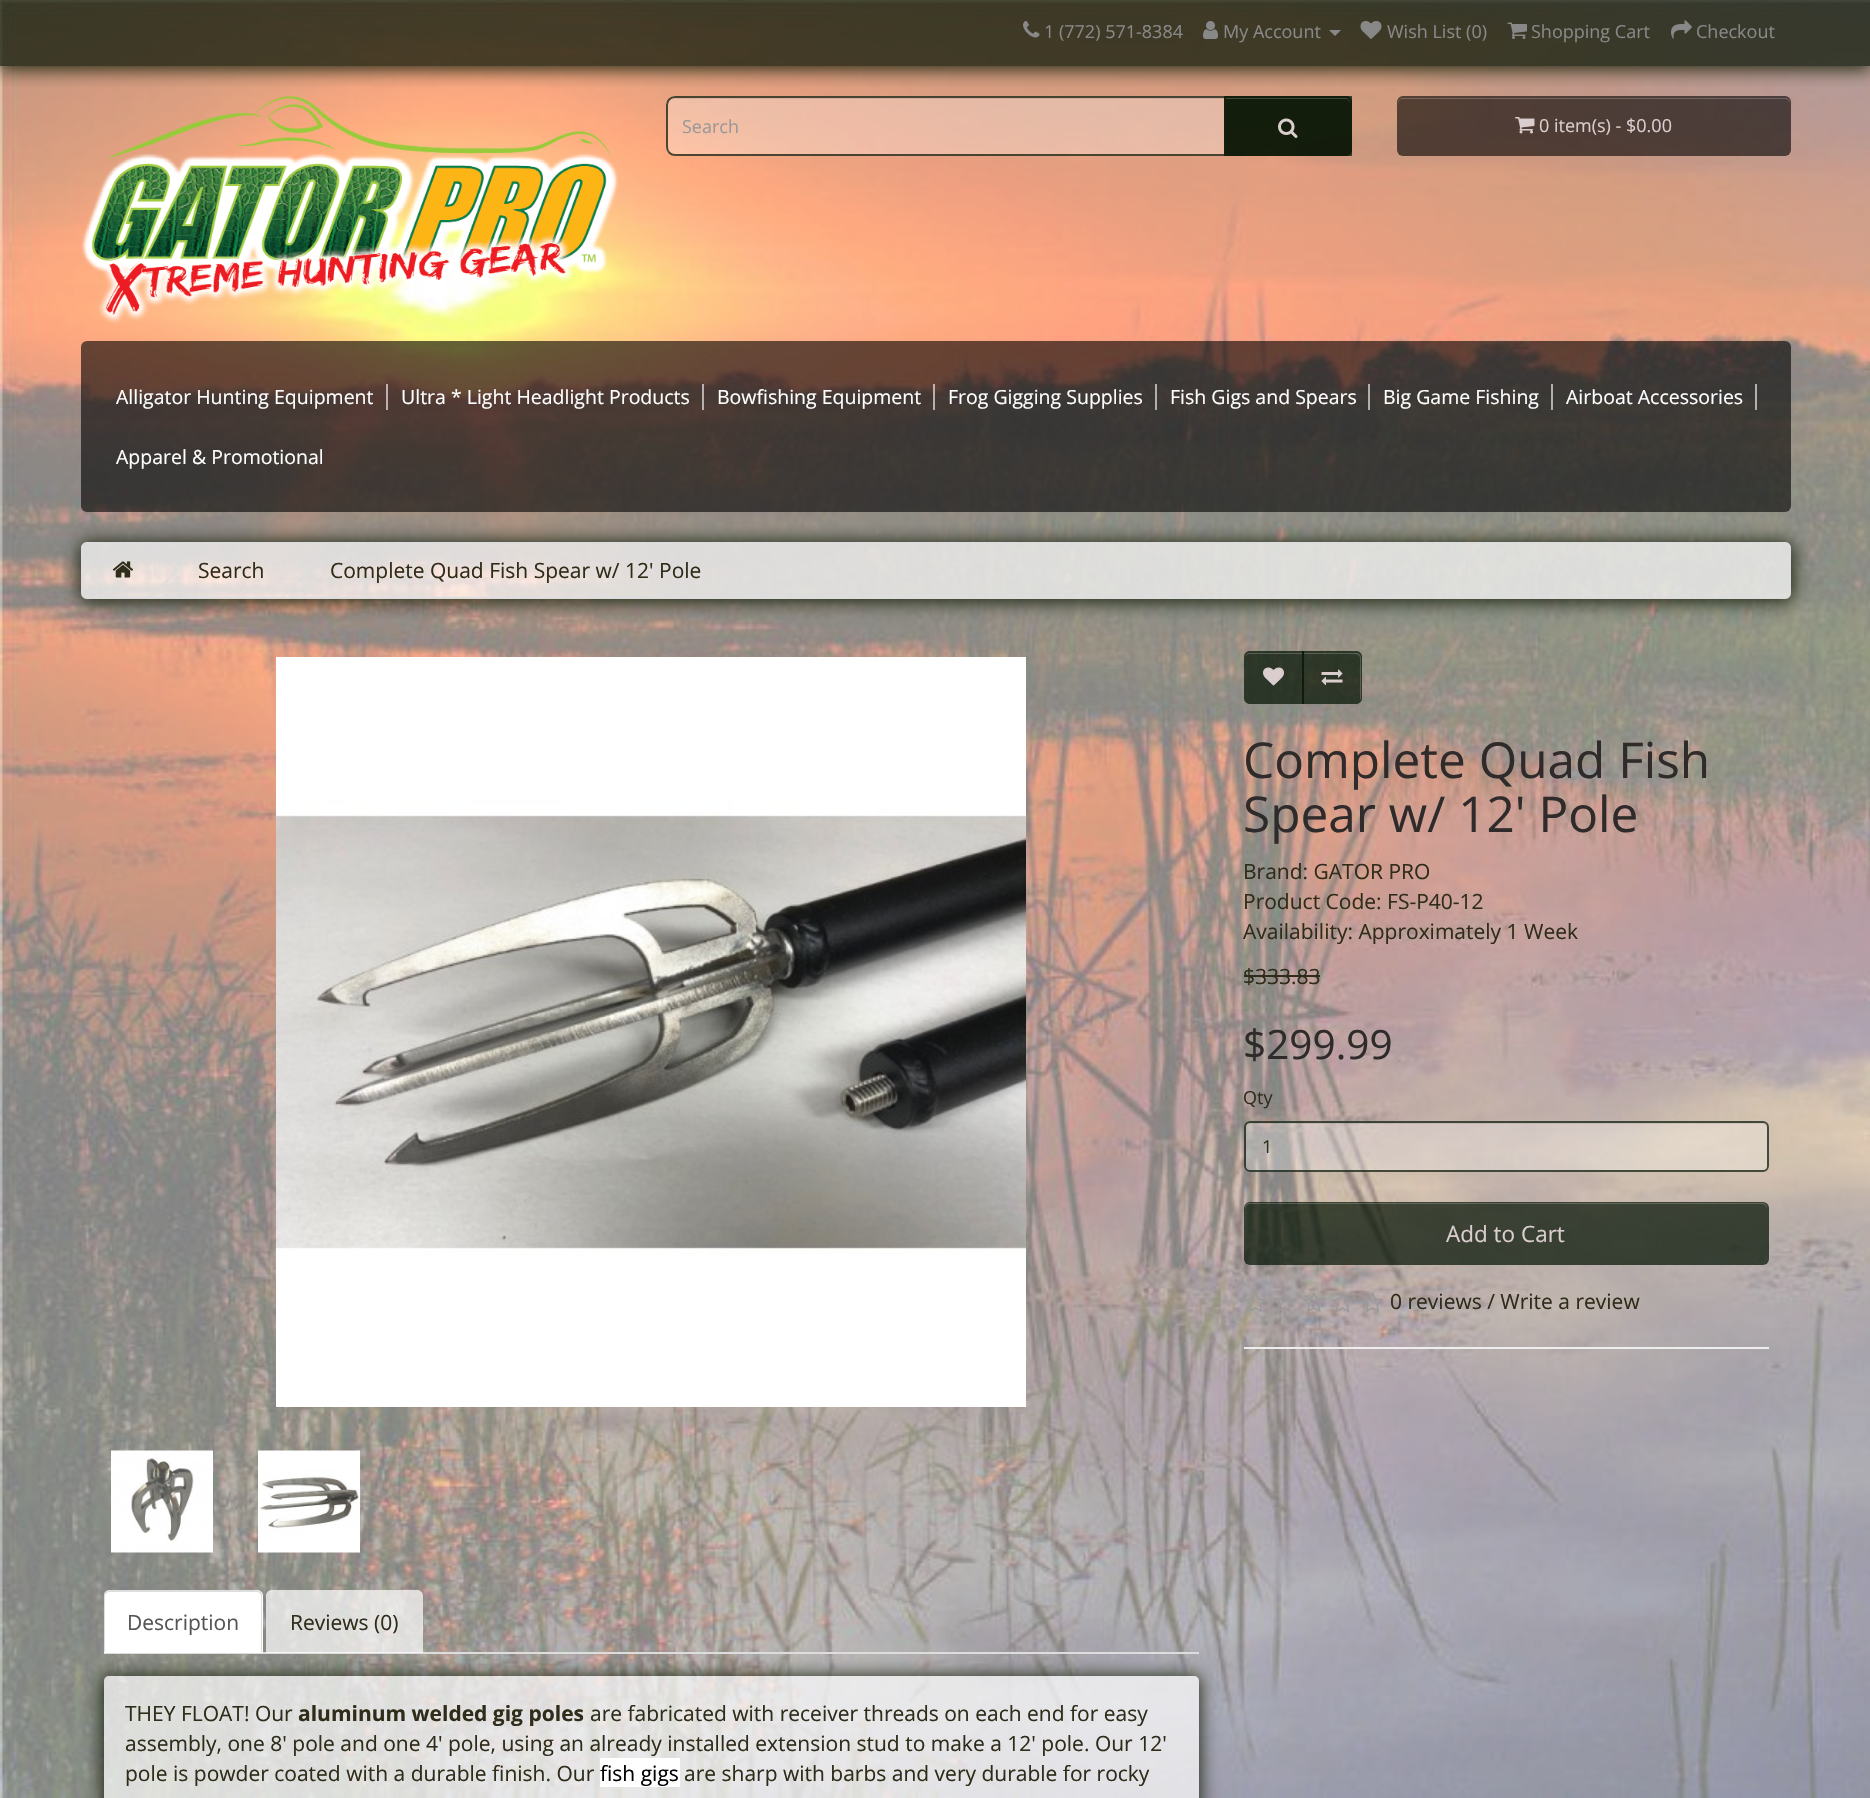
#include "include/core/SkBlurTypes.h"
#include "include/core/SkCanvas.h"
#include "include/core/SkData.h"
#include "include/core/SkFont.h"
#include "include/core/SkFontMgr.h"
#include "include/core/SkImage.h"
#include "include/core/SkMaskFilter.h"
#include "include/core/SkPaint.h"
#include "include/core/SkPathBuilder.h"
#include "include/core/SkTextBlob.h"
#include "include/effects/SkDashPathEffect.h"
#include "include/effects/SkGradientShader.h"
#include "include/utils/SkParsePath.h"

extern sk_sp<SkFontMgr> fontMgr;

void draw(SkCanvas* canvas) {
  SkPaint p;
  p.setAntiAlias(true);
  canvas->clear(SK_ColorWHITE);
  canvas->drawImageRect(SkImages::DeferredFromEncodedData(SkData::MakeFromFileName("images/1.png")), SkRect::MakeLTRB(0, 0, 1870, 1798), SkSamplingOptions());
  canvas->save();
  canvas->clipRect(SkRect::MakeLTRB(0, 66, 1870, 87));
  p.setColor(SkColorSetRGB(27, 36, 14));
  p.setMaskFilter(SkMaskFilter::MakeBlur(kNormal_SkBlurStyle, 9));
  canvas->drawRect(SkRect::MakeLTRB(-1, 0, 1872, 69), p);
  p.setMaskFilter(nullptr);
  canvas->restore();
  p.setColor(SkColorSetARGB(179, 0, 15, 0));
  canvas->drawRect(SkRect::MakeLTRB(0, 0, 1870, 66), p);
  canvas->drawImageRect(SkImages::DeferredFromEncodedData(SkData::MakeFromFileName("images/2.png")), SkRect::MakeLTRB(1023, 21, 1040, 38), SkSamplingOptions());
  canvas->drawImageRect(SkImages::DeferredFromEncodedData(SkData::MakeFromFileName("images/3.png")), SkRect::MakeLTRB(1203, 21, 1218, 39), SkSamplingOptions());
  p.setColor(SkColorSetRGB(136, 136, 136));
  canvas->drawPath(SkPathBuilder().moveTo(1329, 30).lineTo(1341, 30).lineTo(1335, 36).close().detach(), p);
  canvas->drawImageRect(SkImages::DeferredFromEncodedData(SkData::MakeFromFileName("images/4.png")), SkRect::MakeLTRB(1360, 21, 1382, 39), SkSamplingOptions());
  canvas->drawImageRect(SkImages::DeferredFromEncodedData(SkData::MakeFromFileName("images/5.png")), SkRect::MakeLTRB(1507, 22, 1527, 39), SkSamplingOptions());
  canvas->drawImageRect(SkImages::DeferredFromEncodedData(SkData::MakeFromFileName("images/6.png")), SkRect::MakeLTRB(1671, 20, 1692, 39), SkSamplingOptions());
  canvas->drawImageRect(SkImages::DeferredFromEncodedData(SkData::MakeFromFileName("images/7.png")), SkRect::MakeLTRB(81, 96, 619, 324), SkSamplingOptions());
  p.setColor(SkColorSetARGB(77, 255, 255, 255));
  canvas->drawPath(SkPathBuilder().moveTo(675, 96).lineTo(1226, 96).lineTo(1226, 156).lineTo(675, 156).cubicTo(670, 156, 666, 152, 666, 147).lineTo(666, 105).cubicTo(666, 100, 670, 96, 675, 96).close().detach(), p);
  p.setColor(SkColorSetARGB(18, 0, 0, 0));
  canvas->drawPath(SkPathBuilder().moveTo(675, 99).lineTo(1224, 99).lineTo(1224, 98).lineTo(676, 98).cubicTo(672, 98, 668, 102, 668, 106).cubicTo(668, 102, 671, 99, 675, 99).close().detach(), p);
  p.setStyle(SkPaint::kStroke_Style);
  p.setStrokeWidth(2);
  p.setColor(SkColorSetARGB(179, 0, 15, 0));
  canvas->drawPath(SkPathBuilder().moveTo(675, 97).lineTo(1225, 97).lineTo(1225, 155).lineTo(675, 155).cubicTo(670.5f, 155, 667, 151.5f, 667, 147).lineTo(667, 105).cubicTo(667, 100.5f, 670.5f, 97, 675, 97).close().detach(), p);
  p.setStyle(SkPaint::kFill_Style);
  canvas->drawRect(SkRect::MakeLTRB(1226, 96, 1352, 156), p);
  canvas->drawPath(SkPathBuilder().moveTo(1224, 96).lineTo(1346, 96).cubicTo(1349.5f, 96, 1352, 98.5f, 1352, 102).lineTo(1352, 150).cubicTo(1352, 153.5f, 1349.5f, 156, 1346, 156).lineTo(1224, 156).close().detach(), p);
  p.setColor(SkColorSetRGB(66, 73, 60));
  canvas->drawPath(SkPathBuilder().moveTo(1226, 99).lineTo(1346, 99).cubicTo(1348, 99, 1350, 101, 1350, 104).lineTo(1350, 103).cubicTo(1350, 100, 1348, 98, 1345, 98).lineTo(1226, 98).close().detach(), p);
  canvas->drawImageRect(SkImages::DeferredFromEncodedData(SkData::MakeFromFileName("images/8.png")), SkRect::MakeLTRB(1278, 118, 1298, 138), SkSamplingOptions());
  p.setColor(SkColorSetARGB(153, 0, 0, 0));
  canvas->drawRoundRect(SkRect::MakeLTRB(1397, 96, 1791, 156), 6, 6, p);
  p.setColor(SkColorSetARGB(51, 255, 255, 255));
  canvas->drawPath(SkPathBuilder().moveTo(1402, 99).lineTo(1785, 99).cubicTo(1787, 99, 1790, 101, 1790, 104).lineTo(1790, 103).cubicTo(1790, 100, 1788, 98, 1785, 98).lineTo(1403, 98).cubicTo(1400, 98, 1398, 100, 1398, 103).lineTo(1398, 104).cubicTo(1398, 101, 1400, 99, 1402, 99).close().detach(), p);
  canvas->drawImageRect(SkImages::DeferredFromEncodedData(SkData::MakeFromFileName("images/9.png")), SkRect::MakeLTRB(1515, 117, 1535, 134), SkSamplingOptions());
  p.setColor(SkColorSetARGB(153, 0, 0, 0));
  canvas->drawRoundRect(SkRect::MakeLTRB(81, 341, 1791, 512), 6, 6, p);
  p.setColor(SkColorSetARGB(153, 255, 255, 255));
  canvas->drawRect(SkRect::MakeLTRB(386, 384, 388, 410), p);
  canvas->drawRect(SkRect::MakeLTRB(702, 384, 704, 410), p);
  canvas->drawRect(SkRect::MakeLTRB(933, 384, 935, 410), p);
  canvas->drawRect(SkRect::MakeLTRB(1155, 384, 1157, 410), p);
  canvas->drawRect(SkRect::MakeLTRB(1368, 384, 1370, 410), p);
  canvas->drawRect(SkRect::MakeLTRB(1551, 384, 1553, 410), p);
  canvas->drawRect(SkRect::MakeLTRB(1755, 384, 1757, 410), p);
  canvas->save();
  canvas->clipPath(SkPathBuilder(SkPathFillType::kEvenOdd).moveTo(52, 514).lineTo(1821, 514).lineTo(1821, 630).lineTo(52, 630).close().moveTo(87, 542).lineTo(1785, 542).cubicTo(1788.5f, 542, 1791, 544.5f, 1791, 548).lineTo(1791, 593).cubicTo(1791, 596.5f, 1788.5f, 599, 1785, 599).lineTo(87, 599).cubicTo(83.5f, 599, 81, 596.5f, 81, 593).lineTo(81, 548).cubicTo(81, 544.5f, 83.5f, 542, 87, 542).close().detach(), true);
  p.setColor(SkColorSetRGB(27, 36, 14));
  p.setMaskFilter(SkMaskFilter::MakeBlur(kNormal_SkBlurStyle, 9));
  canvas->drawRoundRect(SkRect::MakeLTRB(80, 542, 1793, 602), 8, 8, p);
  p.setMaskFilter(nullptr);
  canvas->restore();
  p.setColor(SkColorSetARGB(179, 255, 255, 255));
  canvas->drawRoundRect(SkRect::MakeLTRB(82, 543, 1790, 598), 5, 5, p);
  p.setStyle(SkPaint::kStroke_Style);
  p.setColor(SkColorSetRGB(221, 221, 221));
  canvas->drawRoundRect(SkRect::MakeLTRB(82, 543, 1790, 598), 5, 5, p);
  canvas->drawImageRect(SkImages::DeferredFromEncodedData(SkData::MakeFromFileName("images/10.png")), SkRect::MakeLTRB(112, 561, 133, 578), SkSamplingOptions());
  p.setStyle(SkPaint::kFill_Style);
  canvas->drawPath(SkPathBuilder().moveTo(149.5f, 544).lineTo(150.5f, 543).lineTo(178, 570.5f).lineTo(177, 571.5f).close().detach(), p);
  canvas->drawPath(SkPathBuilder().moveTo(149.5f, 597).lineTo(177, 569.5f).lineTo(178, 570.5f).lineTo(150.5f, 598).close().detach(), p);
  canvas->drawPath(SkPathBuilder().moveTo(281.5f, 544).lineTo(282.5f, 543).lineTo(310, 570.5f).lineTo(309, 571.5f).close().detach(), p);
  canvas->drawPath(SkPathBuilder().moveTo(281.5f, 597).lineTo(309, 569.5f).lineTo(310, 570.5f).lineTo(282.5f, 598).close().detach(), p);
  canvas->drawPath(SkPathBuilder().moveTo(718.5f, 544).lineTo(719.5f, 543).lineTo(747, 570.5f).lineTo(746, 571.5f).close().detach(), p);
  canvas->drawPath(SkPathBuilder().moveTo(718.5f, 597).lineTo(746, 569.5f).lineTo(747, 570.5f).lineTo(719.5f, 598).close().detach(), p);
  p.setColor(SkColorSetARGB(179, 0, 15, 0));
  canvas->drawPath(SkPathBuilder().moveTo(1250, 651).lineTo(1304, 651).lineTo(1304, 704).lineTo(1250, 704).cubicTo(1246.5f, 704, 1244, 701.5f, 1244, 698).lineTo(1244, 657).cubicTo(1244, 653.5f, 1246.5f, 651, 1250, 651).close().detach(), p);
  p.setColor(SkColorSetARGB(51, 255, 255, 255));
  canvas->drawPath(SkPathBuilder().moveTo(1250, 654).lineTo(1302, 654).lineTo(1302, 653).lineTo(1250, 653).cubicTo(1247, 653, 1245, 655, 1245, 658).cubicTo(1245, 656, 1247, 654, 1250, 654).close().detach(), p);
  canvas->drawImageRect(SkImages::DeferredFromEncodedData(SkData::MakeFromFileName("images/11.png")), SkRect::MakeLTRB(1263, 667, 1284, 686), SkSamplingOptions());
  p.setColor(SkColorSetARGB(179, 0, 15, 0));
  canvas->drawPath(SkPathBuilder().moveTo(1302, 651).lineTo(1356, 651).cubicTo(1359.5f, 651, 1362, 653.5f, 1362, 657).lineTo(1362, 698).cubicTo(1362, 701.5f, 1359.5f, 704, 1356, 704).lineTo(1302, 704).close().detach(), p);
  p.setColor(SkColorSetARGB(51, 255, 255, 255));
  canvas->drawPath(SkPathBuilder().moveTo(1304, 654).lineTo(1347, 654).cubicTo(1363, 654, 1360, 654, 1360, 672).lineTo(1360, 700).cubicTo(1361, 699, 1361, 698, 1361, 697).lineTo(1361, 658).cubicTo(1361, 655, 1359, 653, 1356, 653).lineTo(1304, 653).close().detach(), p);
  canvas->drawImageRect(SkImages::DeferredFromEncodedData(SkData::MakeFromFileName("images/12.png")), SkRect::MakeLTRB(1321, 669, 1343, 686), SkSamplingOptions());
  p.setColor(SkColorSetRGB(47, 44, 26));
  canvas->drawRect(SkRect::MakeLTRB(1244, 975, 1320, 977), p);
  p.setColor(SkColorSetARGB(77, 255, 255, 255));
  canvas->drawRoundRect(SkRect::MakeLTRB(1244, 1121, 1769, 1172), 6, 6, p);
  p.setColor(SkColorSetARGB(18, 0, 0, 0));
  canvas->drawPath(SkPathBuilder().moveTo(1250, 1124).lineTo(1762, 1124).cubicTo(1765, 1124, 1767, 1126, 1767, 1128).lineTo(1767, 1127).cubicTo(1767, 1124, 1765, 1122, 1762, 1122).lineTo(1250, 1122).cubicTo(1247, 1122, 1245, 1124, 1245, 1127).lineTo(1245, 1128).cubicTo(1245, 1126, 1247, 1124, 1250, 1124).close().detach(), p);
  p.setStyle(SkPaint::kStroke_Style);
  p.setColor(SkColorSetARGB(179, 0, 15, 0));
  canvas->drawRoundRect(SkRect::MakeLTRB(1245, 1122, 1768, 1171), 5, 5, p);
  p.setStyle(SkPaint::kFill_Style);
  canvas->drawRoundRect(SkRect::MakeLTRB(1244, 1202, 1769, 1265), 6, 6, p);
  p.setColor(SkColorSetARGB(51, 255, 255, 255));
  canvas->drawPath(SkPathBuilder().moveTo(1250, 1204).lineTo(1762, 1204).cubicTo(1765, 1204, 1767, 1207, 1767, 1209).lineTo(1767, 1208).cubicTo(1767, 1205, 1765, 1203, 1762, 1203).lineTo(1250, 1203).cubicTo(1247, 1203, 1245, 1205, 1245, 1208).lineTo(1245, 1209).cubicTo(1245, 1207, 1247, 1204, 1250, 1204).close().detach(), p);
  canvas->drawImageRect(SkImages::DeferredFromEncodedData(SkData::MakeFromFileName("images/13.png")), SkRect::MakeLTRB(1245, 1292, 1266, 1312), SkSamplingOptions());
  canvas->drawImageRect(SkImages::DeferredFromEncodedData(SkData::MakeFromFileName("images/14.png")), SkRect::MakeLTRB(1274, 1293, 1293, 1312), SkSamplingOptions());
  canvas->drawImageRect(SkImages::DeferredFromEncodedData(SkData::MakeFromFileName("images/15.png")), SkRect::MakeLTRB(1304, 1292, 1324, 1312), SkSamplingOptions());
  canvas->drawImageRect(SkImages::DeferredFromEncodedData(SkData::MakeFromFileName("images/16.png")), SkRect::MakeLTRB(1332, 1292, 1353, 1312), SkSamplingOptions());
  canvas->drawImageRect(SkImages::DeferredFromEncodedData(SkData::MakeFromFileName("images/17.png")), SkRect::MakeLTRB(1362, 1292, 1383, 1312), SkSamplingOptions());
  p.setColor(SkColorSetRGB(238, 238, 238));
  canvas->drawRect(SkRect::MakeLTRB(1244, 1347, 1769, 1349), p);
  canvas->drawImageRect(SkImages::DeferredFromEncodedData(SkData::MakeFromFileName("images/18.png")), SkRect::MakeLTRB(276, 657, 1026, 1407), SkSamplingOptions());
  canvas->drawImageRect(SkImages::DeferredFromEncodedData(SkData::MakeFromFileName("images/19.png")), SkRect::MakeLTRB(111, 1450, 213, 1553), SkSamplingOptions());
  canvas->drawImageRect(SkImages::DeferredFromEncodedData(SkData::MakeFromFileName("images/20.png")), SkRect::MakeLTRB(258, 1450, 360, 1553), SkSamplingOptions());
  p.setColor(SkColorSetRGB(221, 221, 221));
  canvas->drawRect(SkRect::MakeLTRB(104, 1652, 1199, 1654), p);
  canvas->save();
  canvas->clipPath(SkPathBuilder(SkPathFillType::kEvenOdd).moveTo(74, 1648).lineTo(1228, 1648).lineTo(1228, 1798).lineTo(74, 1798).close().moveTo(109, 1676).lineTo(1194, 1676).cubicTo(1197, 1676, 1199, 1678, 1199, 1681).lineTo(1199, 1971).cubicTo(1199, 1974, 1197, 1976, 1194, 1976).lineTo(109, 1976).cubicTo(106, 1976, 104, 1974, 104, 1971).lineTo(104, 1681).cubicTo(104, 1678, 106, 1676, 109, 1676).close().detach(), true);
  p.setColor(SkColorSetRGB(27, 36, 14));
  p.setMaskFilter(SkMaskFilter::MakeBlur(kNormal_SkBlurStyle, 9));
  canvas->drawRoundRect(SkRect::MakeLTRB(102, 1676, 1200, 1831), 6, 6, p);
  p.setMaskFilter(nullptr);
  canvas->restore();
  p.setColor(SK_ColorWHITE);
  canvas->drawPath(SkPathBuilder().moveTo(110, 1590).lineTo(257, 1590).cubicTo(260.5f, 1590, 263, 1592.5f, 263, 1596).lineTo(263, 1653).lineTo(104, 1653).lineTo(104, 1596).cubicTo(104, 1592.5f, 106.5f, 1590, 110, 1590).close().detach(), p);
  p.setColor(SkColorSetRGB(221, 221, 221));
  canvas->drawPath(SkPathBuilder().moveTo(110, 1590).cubicTo(108, 1590, 106, 1591, 105, 1592).lineTo(107, 1593).cubicTo(107, 1592, 109, 1592, 110, 1592).lineTo(256, 1592).cubicTo(257, 1592, 259, 1592, 259, 1593).lineTo(261, 1592).cubicTo(260, 1591, 258, 1590, 256, 1590).close().detach(), p);
  canvas->drawPath(SkPathBuilder().moveTo(261, 1592).cubicTo(262, 1593, 262, 1595, 262, 1596).lineTo(262, 1652).lineTo(261, 1652).lineTo(261, 1595).lineTo(259, 1593).close().detach(), p);
  canvas->drawPath(SkPathBuilder().moveTo(105, 1592).cubicTo(104, 1593, 104, 1595, 104, 1596).lineTo(104, 1652).lineTo(105, 1652).lineTo(105, 1595).lineTo(107, 1593).close().detach(), p);
  p.setColor(SkColorSetARGB(179, 255, 255, 255));
  canvas->drawPath(SkPathBuilder().moveTo(272, 1590).lineTo(417, 1590).cubicTo(420.5f, 1590, 423, 1592.5f, 423, 1596).lineTo(423, 1653).lineTo(266, 1653).lineTo(266, 1596).cubicTo(266, 1592.5f, 268.5f, 1590, 272, 1590).close().detach(), p);
  canvas->drawRoundRect(SkRect::MakeLTRB(104, 1676, 1199, 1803), 5, 5, p);
  p.setColor(SK_ColorWHITE);
  canvas->drawRect(SkRect::MakeLTRB(600, 1758, 680, 1787), p);
  SkFont font1(fontMgr->matchFamilyStyle("Open Sans", SkFontStyle::Normal()), 18);
  font1.setSubpixel(true);
  p.setColor(SkColorSetRGB(136, 136, 136));
  canvas->drawString("1 (772) 571-8384", 1044, 38, font1, p);
  canvas->drawString("My Account", 1223, 38, font1, p);
  canvas->drawString("Wish List (0)", 1387, 38, font1, p);
  canvas->drawString("Shopping Cart", 1531, 38, font1, p);
  canvas->drawString("Checkout", 1696, 38, font1, p);
  canvas->save();
  canvas->clipRect(SkRect::MakeLTRB(683, 114, 1209, 140));
  p.setColor(SkColorSetRGB(153, 153, 153));
  canvas->drawString("Search", 682, 133, font1, p);
  canvas->restore();
  p.setColor(SkColorSetRGB(218, 205, 205));
  canvas->drawString("0 item(s) - $0.00", 1539, 132, font1, p);
  SkFont font2(fontMgr->matchFamilyStyle("Open Sans", SkFontStyle::Normal()), 19.5f);
  font2.setSubpixel(true);
  p.setColor(SK_ColorWHITE);
  canvas->drawString("Alligator Hunting Equipment", 116, 404, font2, p);
  canvas->drawString("Ultra * Light Headlight Products", 401, 404, font2, p);
  canvas->drawString("Bowfishing Equipment", 717, 404, font2, p);
  canvas->drawString("Frog Gigging Supplies", 948, 404, font2, p);
  canvas->drawString("Fish Gigs and Spears", 1170, 404, font2, p);
  canvas->drawString("Big Game Fishing", 1383, 404, font2, p);
  canvas->drawString("Airboat Accessories", 1566, 404, font2, p);
  canvas->drawString("Apparel & Promotional", 116, 464, font2, p);
  SkFont font3(fontMgr->matchFamilyStyle("Open Sans", SkFontStyle::Normal()), 21);
  font3.setSubpixel(true);
  p.setColor(SkColorSetRGB(47, 44, 26));
  canvas->drawString("Search", 198, 578, font3, p);
  canvas->drawString("Complete Quad Fish Spear w/ 12' Pole", 330, 578, font3, p);
  SkFont font4(fontMgr->matchFamilyStyle("Open Sans", SkFontStyle::Normal()), 49.5f);
  font4.setSubpixel(true);
  p.setColor(SkColorSetRGB(47, 43, 43));
  canvas->drawString("Complete Quad Fish", 1243, 778, font4, p);
  canvas->drawString("Spear w/ 12' Pole", 1243, 832, font4, p);
  p.setColor(SkColorSetRGB(47, 44, 26));
  canvas->drawString("Brand: GATOR PRO", 1243, 879, font3, p);
  canvas->drawString("Product Code: FS-P40-12", 1243, 909, font3, p);
  canvas->drawString("Availability: Approximately 1 Week", 1243, 939, font3, p);
  canvas->drawString("$333.83", 1243, 984, font3, p);
  SkFont font5(fontMgr->matchFamilyStyle("Open Sans", SkFontStyle::Normal()), 40.5f);
  font5.setSubpixel(true);
  p.setColor(SkColorSetRGB(47, 43, 43));
  canvas->drawString("$299.99", 1243, 1059, font5, p);
  p.setColor(SkColorSetRGB(47, 44, 26));
  canvas->drawString("Qty", 1243, 1104, font1, p);
  canvas->drawString("1", 1262, 1153, font1, p);
  SkFont font6(fontMgr->matchFamilyStyle("Open Sans", SkFontStyle::Normal()), 22.5f);
  font6.setSubpixel(true);
  p.setColor(SkColorSetRGB(218, 205, 205));
  canvas->drawString("Add to Cart", 1446, 1242, font6, p);
  p.setColor(SkColorSetRGB(47, 44, 26));
  canvas->drawString("0 reviews / Write a review", 1390, 1309, font3, p);
  p.setColor(SkColorSetRGB(85, 85, 85));
  canvas->drawString("Description", 127, 1630, font3, p);
  p.setColor(SkColorSetRGB(47, 44, 26));
  canvas->drawString("Reviews (0)", 290, 1630, font3, p);
  canvas->drawString("THEY FLOAT! Our", 125, 1721, font3, p);
  SkFont font7(fontMgr->matchFamilyStyle("Open Sans", SkFontStyle::Bold()), 21);
  font7.setSubpixel(true);
  canvas->drawString("aluminum welded gig poles", 298, 1721, font7, p);
  canvas->drawString("are fabricated with receiver threads on each end for easy", 590, 1721, font3, p);
  canvas->drawString("assembly, one 8' pole and one 4' pole, using an already installed extension stud to make a 12' pole. Our 12'", 125, 1751, font3, p);
  canvas->drawString("pole is powder coated with a durable finish. Our", 125, 1781, font3, p);
  p.setColor(SK_ColorBLACK);
  canvas->drawString("fish gigs", 600, 1781, font3, p);
  p.setColor(SkColorSetRGB(47, 44, 26));
  canvas->drawString("are sharp with barbs and very durable for rocky", 684, 1781, font3, p);
}
